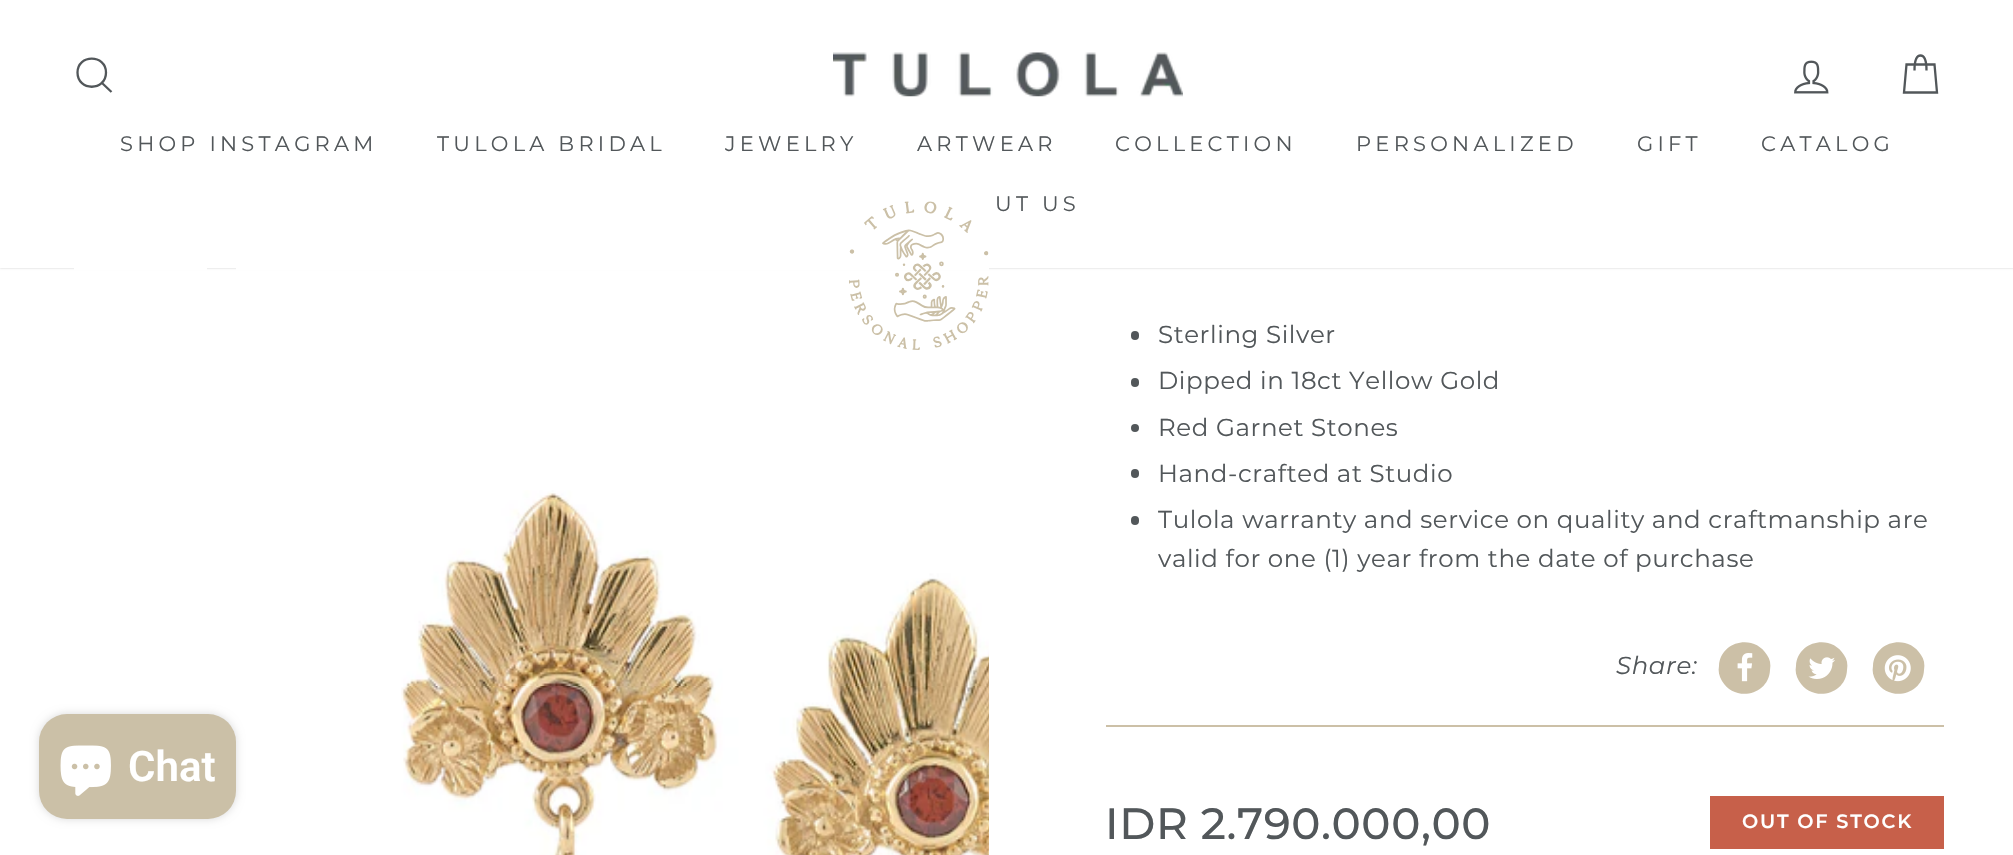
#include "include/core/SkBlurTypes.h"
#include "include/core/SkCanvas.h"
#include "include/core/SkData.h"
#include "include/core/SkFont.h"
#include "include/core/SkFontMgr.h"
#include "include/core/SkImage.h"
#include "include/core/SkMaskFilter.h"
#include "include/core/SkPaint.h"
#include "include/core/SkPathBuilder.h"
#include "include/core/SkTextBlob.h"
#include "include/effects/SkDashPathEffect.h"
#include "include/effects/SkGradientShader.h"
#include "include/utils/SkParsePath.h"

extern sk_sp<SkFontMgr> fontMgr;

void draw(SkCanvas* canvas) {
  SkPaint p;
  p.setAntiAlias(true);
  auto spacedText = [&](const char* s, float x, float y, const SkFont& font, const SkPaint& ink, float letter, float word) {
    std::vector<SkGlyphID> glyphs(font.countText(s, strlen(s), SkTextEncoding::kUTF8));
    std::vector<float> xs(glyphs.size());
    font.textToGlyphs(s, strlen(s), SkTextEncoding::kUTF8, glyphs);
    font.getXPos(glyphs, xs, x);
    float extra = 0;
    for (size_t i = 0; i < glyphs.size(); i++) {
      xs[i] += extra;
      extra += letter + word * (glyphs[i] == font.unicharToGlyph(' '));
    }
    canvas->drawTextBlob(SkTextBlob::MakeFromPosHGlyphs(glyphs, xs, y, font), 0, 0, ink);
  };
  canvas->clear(SK_ColorWHITE);
  p.setColor(SkColorSetARGB(51, 0, 0, 0));
  p.setMaskFilter(SkMaskFilter::MakeBlur(kNormal_SkBlurStyle, 1));
  canvas->drawRect(SkRect::MakeLTRB(0, 0, 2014, 268), p);
  p.setMaskFilter(nullptr);
  p.setColor(SK_ColorWHITE);
  canvas->drawRect(SkRect::MakeLTRB(0, 0, 2013, 268), p);
  p.setStyle(SkPaint::kStroke_Style);
  p.setStrokeWidth(2.3f);
  p.setColor(SkColorSetRGB(82, 87, 90));
  canvas->drawPath(SkPathBuilder().moveTo(106, 72.5f).cubicTo(106, 91.5f, 77.5f, 91.5f, 77.5f, 72.5f).cubicTo(77.5f, 54, 106, 54, 106, 72.5f).close().moveTo(111.5f, 92).lineTo(102, 83).detach(), p);
  canvas->drawImageRect(SkImages::DeferredFromEncodedData(SkData::MakeFromFileName("images/1.png")), SkRect::MakeLTRB(833, 52, 1183, 97), SkSamplingOptions());
  canvas->drawImageRect(SkImages::DeferredFromEncodedData(SkData::MakeFromFileName("images/2.png")), SkRect::MakeLTRB(1794, 60, 1829, 94), SkSamplingOptions());
  canvas->drawPath(SkPathBuilder().moveTo(1914.5f, 70.5f).cubicTo(1914.5f, 58.5f, 1917, 55.5f, 1920.5f, 55.5f).cubicTo(1924, 55.5f, 1926.5f, 58.5f, 1926.5f, 70.5f).moveTo(1906.5f, 64.5f).lineTo(1934.5f, 64.5f).lineTo(1937, 92.5f).lineTo(1904, 92.5f).close().detach(), p);
  p.setStyle(SkPaint::kFill_Style);
  p.setColor(SK_ColorWHITE);
  canvas->drawRect(SkRect::MakeLTRB(236, 268, 989, 270), p);
  canvas->drawImageRect(SkImages::DeferredFromEncodedData(SkData::MakeFromFileName("images/3.png")), SkRect::MakeLTRB(849, 201, 989, 350), SkSamplingOptions());
  canvas->drawRect(SkRect::MakeLTRB(74, 268, 207, 270), p);
  canvas->drawImageRect(SkImages::DeferredFromEncodedData(SkData::MakeFromFileName("images/4.png")), SkRect::MakeLTRB(401, 490, 989, 855), SkSamplingOptions());
  p.setColor(SkColorSetRGB(82, 87, 90));
  canvas->drawRoundRect(SkRect::MakeLTRB(1131, 331, 1139, 340), 4, 4, p);
  canvas->drawRoundRect(SkRect::MakeLTRB(1131, 378, 1139, 387), 4, 4, p);
  canvas->drawCircle(1135, 428, 4, p);
  canvas->drawRoundRect(SkRect::MakeLTRB(1131, 469, 1139, 478), 4, 4, p);
  canvas->drawRoundRect(SkRect::MakeLTRB(1131, 516, 1139, 525), 4, 4, p);
  p.setColor(SkColorSetRGB(204, 192, 167));
  canvas->drawPath(SkPathBuilder().moveTo(1767, 655).cubicTo(1770, 659, 1771, 664, 1770, 670).cubicTo(1769, 695, 1735, 703, 1722, 681).cubicTo(1719, 676, 1718, 671, 1719, 666).cubicTo(1720, 641, 1754, 633, 1767, 655).close().detach(), p);
  canvas->drawImageRect(SkImages::DeferredFromEncodedData(SkData::MakeFromFileName("images/5.png")), SkRect::MakeLTRB(1737, 653, 1753, 682), SkSamplingOptions());
  canvas->drawPath(SkPathBuilder().moveTo(1844, 655).cubicTo(1847, 659, 1848, 664, 1847, 670).cubicTo(1846, 695, 1812, 703, 1799, 681).cubicTo(1796, 676, 1795, 671, 1796, 666).cubicTo(1797, 641, 1831, 633, 1844, 655).close().detach(), p);
  canvas->drawImageRect(SkImages::DeferredFromEncodedData(SkData::MakeFromFileName("images/6.png")), SkRect::MakeLTRB(1808, 657, 1835, 679), SkSamplingOptions());
  canvas->drawPath(SkPathBuilder().moveTo(1921, 655).cubicTo(1924, 659, 1925, 664, 1924, 670).cubicTo(1923, 695, 1889, 703, 1876, 681).cubicTo(1873, 676, 1872, 671, 1873, 666).cubicTo(1874, 641, 1908, 633, 1921, 655).close().detach(), p);
  canvas->drawImageRect(SkImages::DeferredFromEncodedData(SkData::MakeFromFileName("images/7.png")), SkRect::MakeLTRB(1884, 655, 1911, 682), SkSamplingOptions());
  canvas->drawRect(SkRect::MakeLTRB(1106, 725, 1944, 727), p);
  p.setColor(SkColorSetRGB(199, 96, 74));
  canvas->drawRect(SkRect::MakeLTRB(1710, 796, 1944, 849), p);
  p.setColor(SkColorSetARGB(38, 0, 0, 0));
  p.setMaskFilter(SkMaskFilter::MakeBlur(kNormal_SkBlurStyle, 4.5f));
  canvas->drawRoundRect(SkRect::MakeLTRB(39, 714, 236, 819), 28, 28, p);
  p.setMaskFilter(nullptr);
  p.setColor(SkColorSetRGB(203, 192, 167));
  canvas->drawRoundRect(SkRect::MakeLTRB(39, 714, 236, 819), 28, 28, p);
  canvas->drawImageRect(SkImages::DeferredFromEncodedData(SkData::MakeFromFileName("images/8.png")), SkRect::MakeLTRB(60, 745, 111, 796), SkSamplingOptions());
  SkFont font1(fontMgr->matchFamilyStyle("Montserrat", SkFontStyle::Normal()), 21);
  font1.setSubpixel(true);
  p.setColor(SkColorSetRGB(82, 87, 90));
  spacedText("SHOP INSTAGRAM", 120, 151, font1, p, 4.25f, 0);
  spacedText("TULOLA BRIDAL", 437, 151, font1, p, 4.25f, 0);
  spacedText("JEWELRY", 725, 151, font1, p, 4.25f, 0);
  spacedText("ARTWEAR", 917, 151, font1, p, 4.25f, 0);
  spacedText("COLLECTION", 1115, 151, font1, p, 4.25f, 0);
  spacedText("PERSONALIZED", 1356, 151, font1, p, 4.25f, 0);
  spacedText("GIFT", 1637, 151, font1, p, 4.25f, 0);
  spacedText("CATALOG", 1761, 151, font1, p, 4.25f, 0);
  spacedText("UT US", 995, 211, font1, p, 4.25f, 0);
  SkFont font2(fontMgr->matchFamilyStyle("Montserrat", SkFontStyle::Normal()), 24.5f);
  font2.setSubpixel(true);
  spacedText("Sterling Silver", 1158, 343, font2, p, 0.6f, 0);
  spacedText("Dipped in 18ct Yellow Gold", 1158, 389, font2, p, 0.6f, 0);
  spacedText("Red Garnet Stones", 1158, 436, font2, p, 0.6f, 0);
  spacedText("Hand-crafted at Studio", 1158, 482, font2, p, 0.6f, 0);
  spacedText("Tulola warranty and service on quality and craftmanship are", 1158, 528, font2, p, 0.6f, 0);
  spacedText("valid for one (1) year from the date of purchase", 1158, 567, font2, p, 0.6f, 0);
  SkFont font3(fontMgr->matchFamilyStyle("Montserrat", SkFontStyle::Italic()), 24.5f);
  font3.setSubpixel(true);
  spacedText("Share:", 1616, 674, font3, p, 0.6f, 0);
  SkFont font4(fontMgr->matchFamilyStyle("Montserrat", SkFontStyle(500, SkFontStyle::kNormal_Width, SkFontStyle::kUpright_Slant)), 43.75f);
  font4.setSubpixel(true);
  spacedText("IDR 2.790.000,00", 1105, 839, font4, p, 0.6f, 0);
  SkFont font5(fontMgr->matchFamilyStyle("Montserrat", SkFontStyle(600, SkFontStyle::kNormal_Width, SkFontStyle::kUpright_Slant)), 19.25f);
  font5.setSubpixel(true);
  p.setColor(SK_ColorWHITE);
  spacedText("OUT OF STOCK", 1742, 828, font5, p, 1.75f, 0);
  SkFont font6(fontMgr->matchFamilyStyle("Roboto", SkFontStyle(600, SkFontStyle::kNormal_Width, SkFontStyle::kUpright_Slant)), 42);
  font6.setSubpixel(true);
  canvas->drawString("Chat", 128, 781, font6, p);
}
